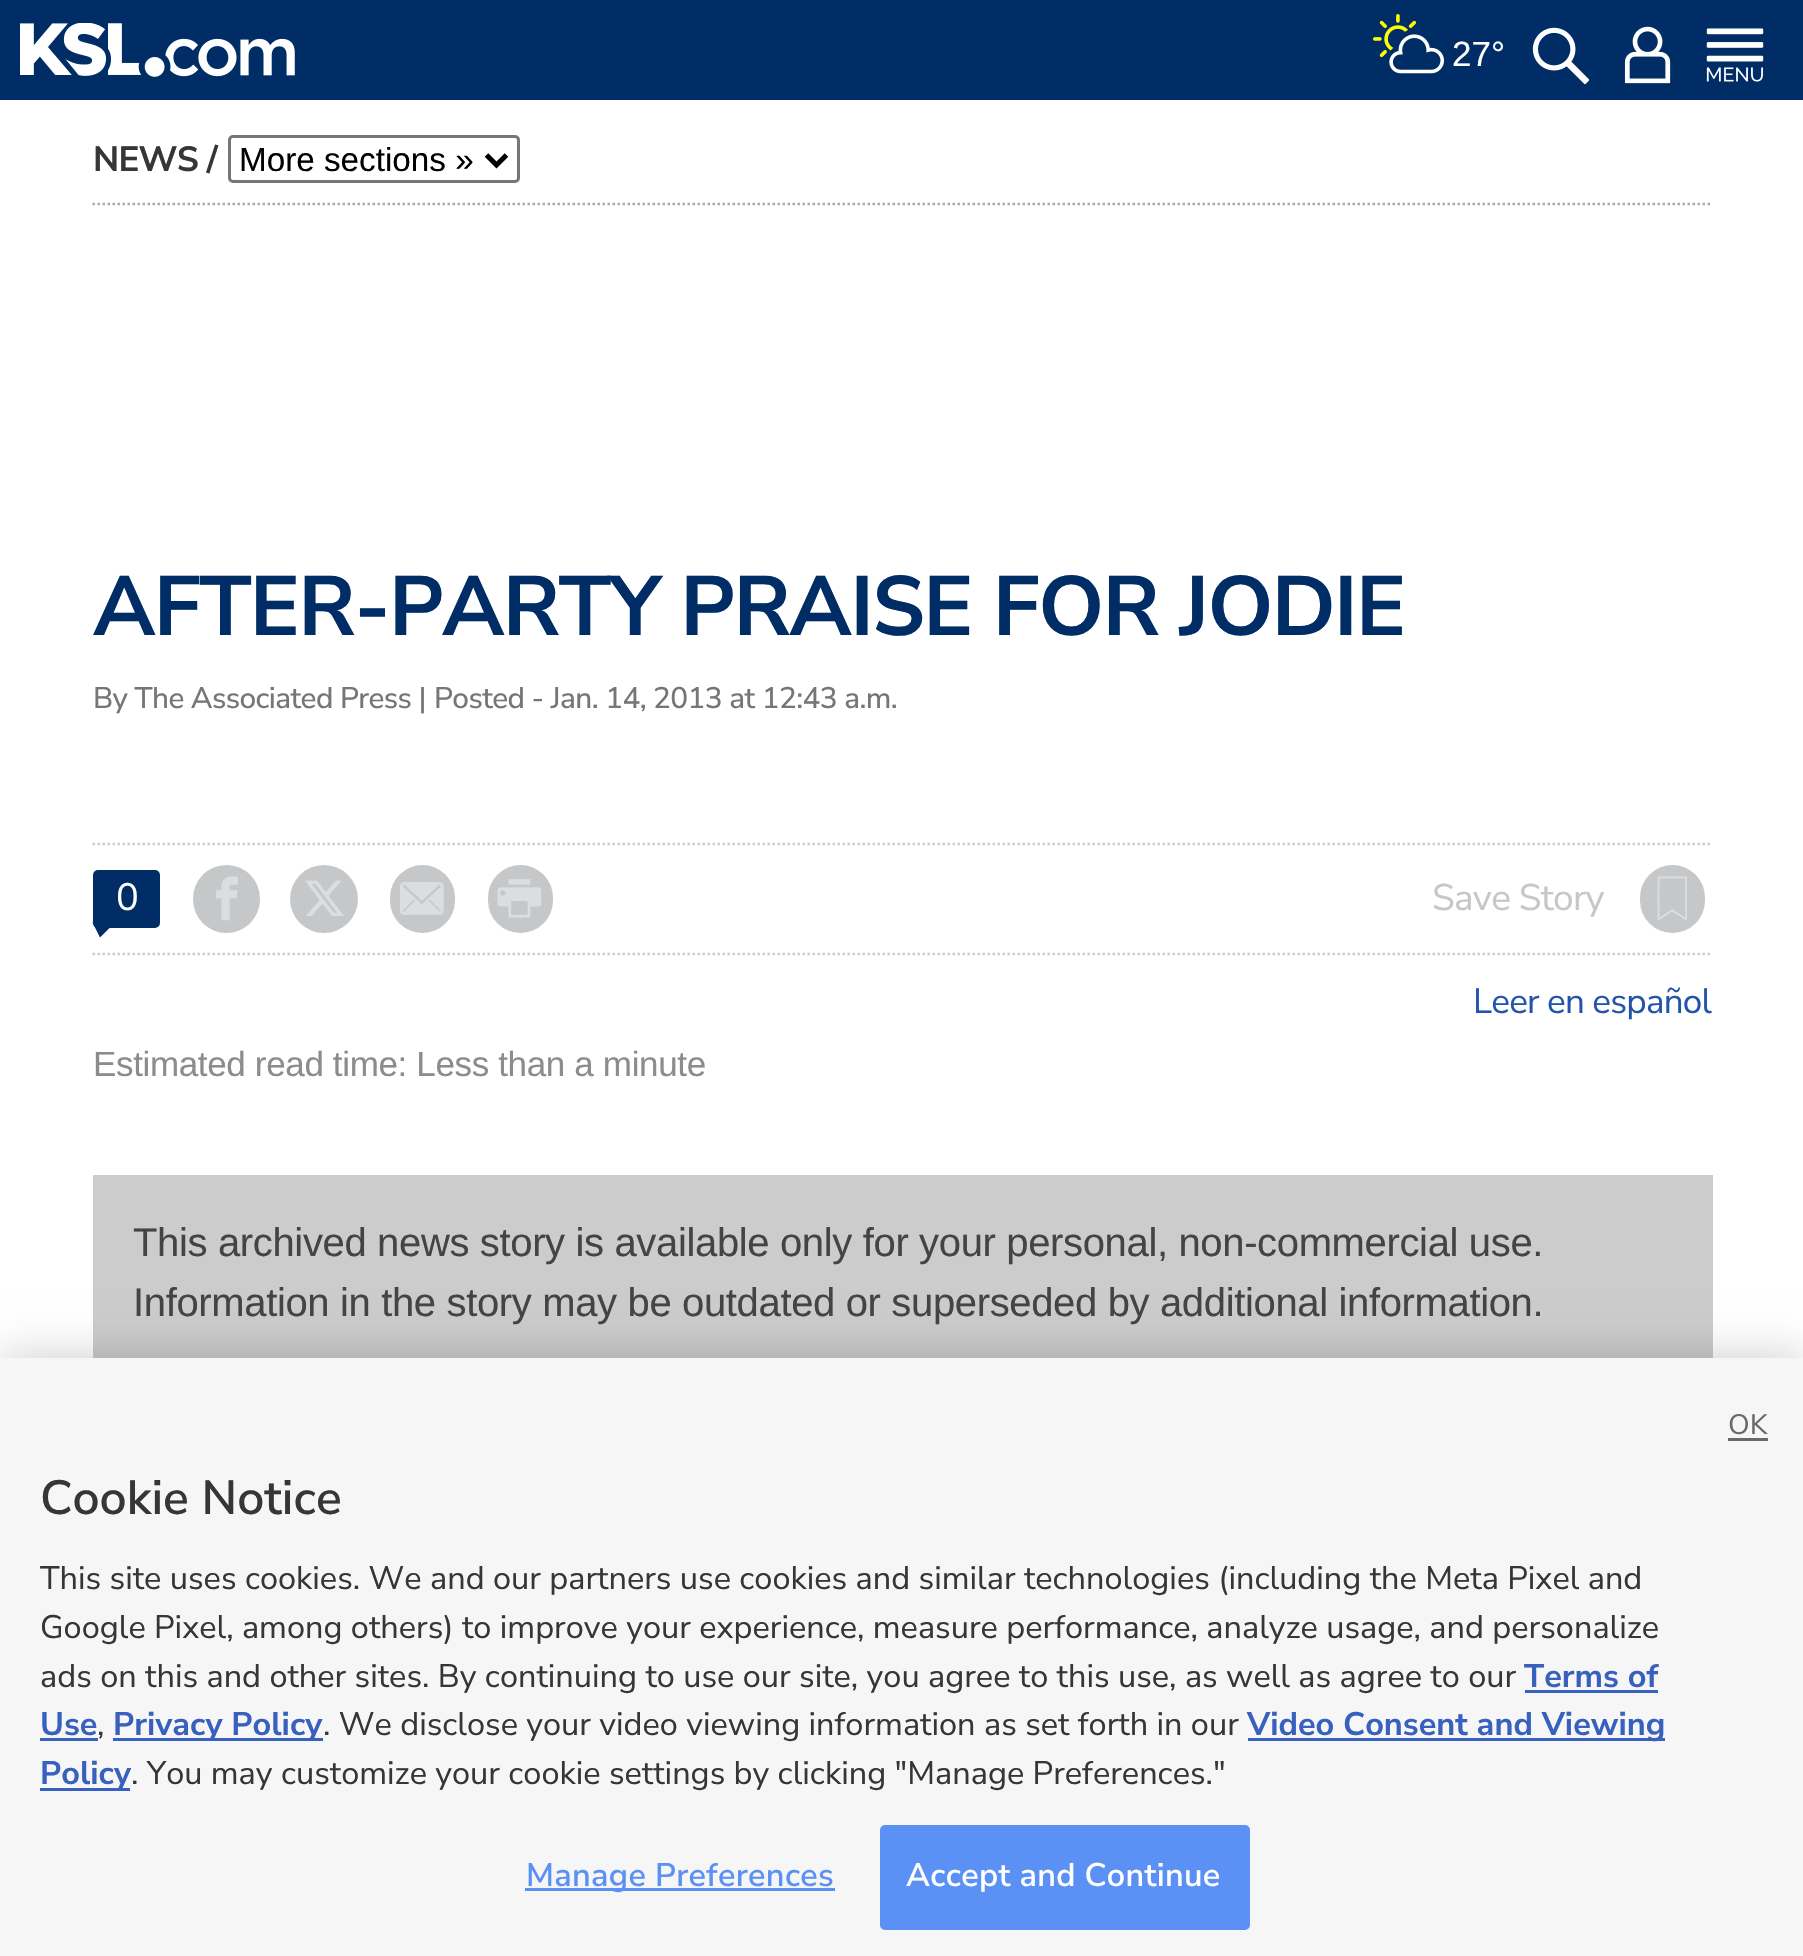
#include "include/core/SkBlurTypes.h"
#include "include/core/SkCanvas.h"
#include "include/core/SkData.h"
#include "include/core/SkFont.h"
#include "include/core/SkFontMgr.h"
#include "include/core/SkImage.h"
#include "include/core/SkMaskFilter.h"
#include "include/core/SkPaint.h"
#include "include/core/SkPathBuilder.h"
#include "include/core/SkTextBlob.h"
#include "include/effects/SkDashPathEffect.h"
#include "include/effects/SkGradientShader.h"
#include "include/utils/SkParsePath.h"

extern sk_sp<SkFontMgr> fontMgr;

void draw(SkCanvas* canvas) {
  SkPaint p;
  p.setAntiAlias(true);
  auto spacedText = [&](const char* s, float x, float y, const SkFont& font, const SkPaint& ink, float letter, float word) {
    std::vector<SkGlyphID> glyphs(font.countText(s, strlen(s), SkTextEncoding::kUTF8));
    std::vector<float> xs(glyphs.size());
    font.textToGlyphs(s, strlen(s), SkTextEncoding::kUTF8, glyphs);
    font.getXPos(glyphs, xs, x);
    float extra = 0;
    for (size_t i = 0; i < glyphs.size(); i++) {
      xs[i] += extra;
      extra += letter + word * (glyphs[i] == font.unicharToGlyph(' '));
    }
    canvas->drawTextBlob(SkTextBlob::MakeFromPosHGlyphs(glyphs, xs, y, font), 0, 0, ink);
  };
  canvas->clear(SK_ColorWHITE);
  p.setColor(SkColorSetRGB(0, 45, 101));
  canvas->drawRect(SkRect::MakeLTRB(0, 0, 1803, 100), p);
  canvas->drawImageRect(SkImages::DeferredFromEncodedData(SkData::MakeFromFileName("images/1.png")), SkRect::MakeLTRB(20, 23, 295, 77), SkSamplingOptions());
  canvas->drawImageRect(SkImages::DeferredFromEncodedData(SkData::MakeFromFileName("images/2.png")), SkRect::MakeLTRB(1373, 14, 1445, 74), SkSamplingOptions());
  canvas->drawImageRect(SkImages::DeferredFromEncodedData(SkData::MakeFromFileName("images/3.png")), SkRect::MakeLTRB(1532, 27, 1590, 85), SkSamplingOptions());
  canvas->drawImageRect(SkImages::DeferredFromEncodedData(SkData::MakeFromFileName("images/4.png")), SkRect::MakeLTRB(1624, 26, 1671, 84), SkSamplingOptions());
  canvas->drawImageRect(SkImages::DeferredFromEncodedData(SkData::MakeFromFileName("images/5.png")), SkRect::MakeLTRB(1706, 28, 1764, 82), SkSamplingOptions());
  p.setStyle(SkPaint::kStroke_Style);
  p.setStrokeWidth(2.5f);
  p.setColor(SkColorSetRGB(170, 170, 170));
  p.setPathEffect(SkDashPathEffect::Make({{2.5f, 2.5f}}, 0));
  canvas->drawPath(SkPathBuilder().moveTo(92.5f, 204).lineTo(1712.5f, 204).detach(), p);
  p.setPathEffect(nullptr);
  p.setStrokeWidth(3);
  p.setColor(SkColorSetRGB(118, 118, 118));
  canvas->drawRoundRect(SkRect::MakeLTRB(229.5f, 136.5f, 518.5f, 181.5f), 3.5f, 3.5f, p);
  p.setStrokeWidth(5);
  p.setColor(SK_ColorBLACK);
  canvas->drawPath(SkPathBuilder().moveTo(486.5f, 155).lineTo(496.5f, 165).lineTo(506.5f, 155).detach(), p);
  p.setStrokeWidth(2.5f);
  p.setColor(SkColorSetRGB(204, 204, 204));
  p.setPathEffect(SkDashPathEffect::Make({{2.5f, 2.5f}}, 0));
  canvas->drawPath(SkPathBuilder().moveTo(92.5f, 844).lineTo(1712.5f, 844).detach(), p);
  p.setPathEffect(nullptr);
  p.setStyle(SkPaint::kFill_Style);
  p.setColor(SkColorSetRGB(0, 45, 101));
  canvas->drawRoundRect(SkRect::MakeLTRB(93, 870, 160, 928), 5, 5, p);
  canvas->drawPath(SkPathBuilder().moveTo(92.5f, 922.5f).lineTo(115, 922.5f).lineTo(100, 937.5f).close().detach(), p);
  p.setColor(SkColorSetRGB(197, 199, 200));
  canvas->drawRoundRect(SkRect::MakeLTRB(193, 865, 260, 933), 33.5f, 33.5f, p);
  canvas->drawImageRect(SkImages::DeferredFromEncodedData(SkData::MakeFromFileName("images/6.png")), SkRect::MakeLTRB(216, 876, 238, 921), SkSamplingOptions());
  canvas->drawCircle(324, 899, 34, p);
  canvas->drawImageRect(SkImages::DeferredFromEncodedData(SkData::MakeFromFileName("images/7.png")), SkRect::MakeLTRB(305, 880, 344, 916), SkSamplingOptions());
  canvas->drawRoundRect(SkRect::MakeLTRB(390, 865, 455, 933), 32.5f, 32.5f, p);
  canvas->drawImageRect(SkImages::DeferredFromEncodedData(SkData::MakeFromFileName("images/8.png")), SkRect::MakeLTRB(400, 882, 444, 915), SkSamplingOptions());
  canvas->drawRoundRect(SkRect::MakeLTRB(488, 865, 553, 933), 32.5f, 32.5f, p);
  canvas->drawImageRect(SkImages::DeferredFromEncodedData(SkData::MakeFromFileName("images/9.png")), SkRect::MakeLTRB(497, 879, 542, 918), SkSamplingOptions());
  canvas->drawRoundRect(SkRect::MakeLTRB(1640, 865, 1705, 933), 32.5f, 32.5f, p);
  canvas->drawImageRect(SkImages::DeferredFromEncodedData(SkData::MakeFromFileName("images/10.png")), SkRect::MakeLTRB(1657, 876, 1687, 920), SkSamplingOptions());
  p.setStyle(SkPaint::kStroke_Style);
  p.setColor(SkColorSetRGB(204, 204, 204));
  p.setPathEffect(SkDashPathEffect::Make({{2.5f, 2.5f}}, 0));
  canvas->drawPath(SkPathBuilder().moveTo(92.5f, 954).lineTo(1712.5f, 954).detach(), p);
  p.setPathEffect(nullptr);
  p.setStyle(SkPaint::kFill_Style);
  canvas->drawRect(SkRect::MakeLTRB(93, 1175, 1713, 1358), p);
  p.setColor(SkColorSetARGB(51, 0, 0, 0));
  p.setMaskFilter(SkMaskFilter::MakeBlur(kNormal_SkBlurStyle, 22.5f));
  canvas->drawRect(SkRect::MakeLTRB(0, 1358, 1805, 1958), p);
  p.setMaskFilter(nullptr);
  p.setColor(SkColorSetRGB(246, 246, 246));
  canvas->drawRect(SkRect::MakeLTRB(0, 1358, 1803, 1956), p);
  p.setColor(SkColorSetRGB(105, 105, 105));
  canvas->drawRect(SkRect::MakeLTRB(1728, 1438, 1768, 1441), p);
  p.setColor(SkColorSetRGB(56, 96, 190));
  canvas->drawRect(SkRect::MakeLTRB(1525, 1690, 1658, 1693), p);
  canvas->drawRect(SkRect::MakeLTRB(40, 1738, 98, 1741), p);
  canvas->drawRect(SkRect::MakeLTRB(113, 1738, 323, 1741), p);
  canvas->drawRect(SkRect::MakeLTRB(1248, 1738, 1665, 1741), p);
  canvas->drawRect(SkRect::MakeLTRB(40, 1788, 130, 1791), p);
  p.setColor(SkColorSetRGB(91, 145, 244));
  canvas->drawRect(SkRect::MakeLTRB(525, 1888, 835, 1891), p);
  canvas->drawRoundRect(SkRect::MakeLTRB(881.5f, 1826.5f, 1248.5f, 1928.5f), 3.5f, 3.5f, p);
  p.setStyle(SkPaint::kStroke_Style);
  p.setStrokeWidth(3);
  canvas->drawRoundRect(SkRect::MakeLTRB(881.5f, 1826.5f, 1248.5f, 1928.5f), 3.5f, 3.5f, p);
  SkFont font1(fontMgr->matchFamilyStyle("Liberation Sans", SkFontStyle::Normal()), 35);
  font1.setSubpixel(true);
  p.setStyle(SkPaint::kFill_Style);
  p.setColor(SK_ColorWHITE);
  canvas->drawString("27°", 1452, 66, font1, p);
  SkFont font2(fontMgr->matchFamilyStyle("Nunito Sans", SkFontStyle::Bold()), 35);
  font2.setSubpixel(true);
  p.setColor(SkColorSetRGB(54, 54, 54));
  spacedText("NEWS /", 93, 171, font2, p, -0.75f, 0);
  SkFont font3(fontMgr->matchFamilyStyle("Liberation Sans", SkFontStyle::Normal()), 33.25f);
  font3.setSubpixel(true);
  p.setColor(SK_ColorBLACK);
  canvas->drawString("More sections »", 239, 171, font3, p);
  SkFont font4(fontMgr->matchFamilyStyle("Nunito Sans", SkFontStyle::Bold()), 84);
  font4.setSubpixel(true);
  p.setColor(SkColorSetRGB(0, 45, 101));
  spacedText("AFTER-PARTY PRAISE FOR JODIE", 93, 635, font4, p, -1.7f, 0);
  SkFont font5(fontMgr->matchFamilyStyle("Nunito Sans", SkFontStyle(500, SkFontStyle::kNormal_Width, SkFontStyle::kUpright_Slant)), 29.75f);
  font5.setSubpixel(true);
  p.setColor(SkColorSetRGB(118, 118, 118));
  spacedText("By The Associated Press |", 93, 708, font5, p, -0.6f, 0);
  spacedText("Posted - Jan. 14, 2013 at 12:43 a.m.", 434, 708, font5, p, -0.6f, 0);
  SkFont font6(fontMgr->matchFamilyStyle("Nunito Sans", SkFontStyle::Normal()), 38);
  font6.setSubpixel(true);
  p.setColor(SK_ColorWHITE);
  spacedText("0", 116, 910, font6, p, -1, 0);
  SkFont font7(fontMgr->matchFamilyStyle("Nunito Sans", SkFontStyle::Normal()), 37);
  font7.setSubpixel(true);
  p.setColor(SkColorSetRGB(197, 199, 200));
  spacedText("Save Story", 1432, 910, font7, p, -0.75f, 0);
  SkFont font8(fontMgr->matchFamilyStyle("Nunito Sans", SkFontStyle::Normal()), 35);
  font8.setSubpixel(true);
  p.setColor(SkColorSetRGB(35, 84, 172));
  spacedText("Leer en español", 1473, 1013, font8, p, -0.75f, 0);
  p.setColor(SkColorSetRGB(140, 140, 140));
  spacedText("Estimated read time: Less than a minute", 93, 1076, font1, p, -0.35f, 0);
  SkFont font9(fontMgr->matchFamilyStyle("Liberation Sans", SkFontStyle::Normal()), 40);
  font9.setSubpixel(true);
  p.setColor(SkColorSetRGB(68, 68, 68));
  spacedText("This archived news story is available only for your personal, non-commercial use.", 133, 1256, font9, p, -0.35f, 0);
  spacedText("Information in the story may be outdated or superseded by additional information.", 133, 1316, font9, p, -0.35f, 0);
  SkFont font10(fontMgr->matchFamilyStyle("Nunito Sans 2", SkFontStyle::Normal()), 28);
  font10.setSubpixel(true);
  p.setColor(SkColorSetRGB(105, 105, 105));
  canvas->drawString("OK", 1728, 1434, font10, p);
  SkFont font11(fontMgr->matchFamilyStyle("Nunito Sans", SkFontStyle(600, SkFontStyle::kNormal_Width, SkFontStyle::kUpright_Slant)), 48);
  font11.setSubpixel(true);
  p.setColor(SkColorSetRGB(54, 54, 54));
  canvas->drawString("Cookie Notice", 40, 1514, font11, p);
  SkFont font12(fontMgr->matchFamilyStyle("Nunito Sans", SkFontStyle::Normal()), 32.5f);
  font12.setSubpixel(true);
  canvas->drawString("This site uses cookies. We and our partners use cookies and similar technologies (including the Meta Pixel and", 40, 1589, font12, p);
  canvas->drawString("Google Pixel, among others) to improve your experience, measure performance, analyze usage, and personalize", 40, 1638, font12, p);
  canvas->drawString("ads on this and other sites. By continuing to use our site, you agree to this use, as well as agree to our", 40, 1687, font12, p);
  SkFont font13(fontMgr->matchFamilyStyle("Nunito Sans", SkFontStyle::Bold()), 32.5f);
  font13.setSubpixel(true);
  p.setColor(SkColorSetRGB(56, 96, 190));
  canvas->drawString("Terms of", 1524, 1687, font13, p);
  canvas->drawString("Use", 40, 1735, font13, p);
  p.setColor(SkColorSetRGB(54, 54, 54));
  canvas->drawString(",", 97, 1735, font12, p);
  p.setColor(SkColorSetRGB(56, 96, 190));
  canvas->drawString("Privacy Policy", 113, 1735, font13, p);
  p.setColor(SkColorSetRGB(54, 54, 54));
  canvas->drawString(". We disclose your video viewing information as set forth in our", 323, 1735, font12, p);
  p.setColor(SkColorSetRGB(56, 96, 190));
  canvas->drawString("Video Consent and Viewing", 1247, 1735, font13, p);
  canvas->drawString("Policy", 40, 1784, font13, p);
  p.setColor(SkColorSetRGB(54, 54, 54));
  canvas->drawString(". You may customize your cookie settings by clicking \"Manage Preferences.\"", 131, 1784, font12, p);
  SkFont font14(fontMgr->matchFamilyStyle("Nunito Sans", SkFontStyle(600, SkFontStyle::kNormal_Width, SkFontStyle::kUpright_Slant)), 32.5f);
  font14.setSubpixel(true);
  p.setColor(SkColorSetRGB(91, 145, 244));
  spacedText("Manage Preferences", 526, 1886, font14, p, 0.3f, 0);
  p.setColor(SK_ColorWHITE);
  spacedText("Accept and Continue", 906, 1886, font14, p, 0.3f, 0);
}
